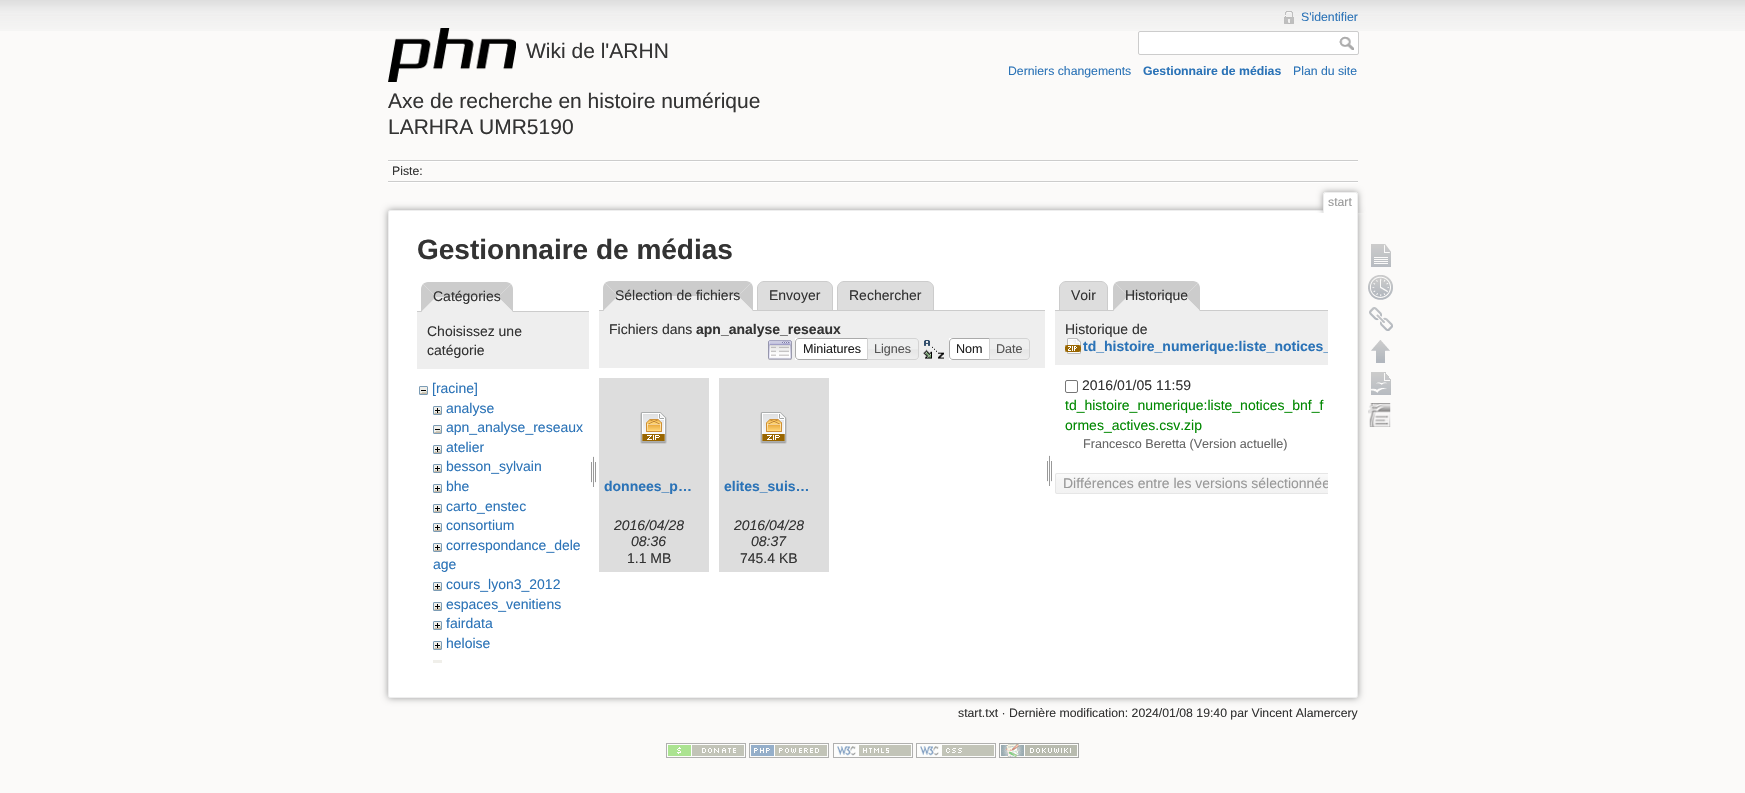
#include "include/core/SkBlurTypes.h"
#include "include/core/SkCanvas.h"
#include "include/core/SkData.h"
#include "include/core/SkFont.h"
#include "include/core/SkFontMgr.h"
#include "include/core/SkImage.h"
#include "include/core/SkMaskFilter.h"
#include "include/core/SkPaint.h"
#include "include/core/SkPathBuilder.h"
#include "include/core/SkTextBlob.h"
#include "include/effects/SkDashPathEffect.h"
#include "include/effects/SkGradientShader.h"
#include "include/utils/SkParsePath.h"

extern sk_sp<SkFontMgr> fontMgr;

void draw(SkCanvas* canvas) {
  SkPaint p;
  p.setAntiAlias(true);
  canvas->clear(SkColorSetRGB(251, 250, 249));
  canvas->drawImageRect(SkImages::DeferredFromEncodedData(SkData::MakeFromFileName("images/1.png")), SkRect::MakeLTRB(0, 0, 1745, 31), SkSamplingOptions());
  canvas->drawImageRect(SkImages::DeferredFromEncodedData(SkData::MakeFromFileName("images/2.png")), SkRect::MakeLTRB(388, 28, 516, 82), SkSamplingOptions());
  canvas->drawImageRect(SkImages::DeferredFromEncodedData(SkData::MakeFromFileName("images/3.png")), SkRect::MakeLTRB(1284, 11, 1294, 24), SkSamplingOptions());
  p.setColor(SK_ColorWHITE);
  canvas->drawRoundRect(SkRect::MakeLTRB(1138.5f, 31.5f, 1358.5f, 54.5f), 1.5f, 1.5f, p);
  p.setStyle(SkPaint::kStroke_Style);
  p.setStrokeWidth(1);
  p.setColor(SkColorSetRGB(204, 204, 204));
  canvas->drawRoundRect(SkRect::MakeLTRB(1138.5f, 31.5f, 1358.5f, 54.5f), 1.5f, 1.5f, p);
  canvas->drawImageRect(SkImages::DeferredFromEncodedData(SkData::MakeFromFileName("images/4.png")), SkRect::MakeLTRB(1339, 36, 1354, 50), SkSamplingOptions());
  p.setStyle(SkPaint::kFill_Style);
  canvas->drawRect(SkRect::MakeLTRB(388, 160, 1358, 161), p);
  p.setColor(SK_ColorWHITE);
  canvas->drawRect(SkRect::MakeLTRB(388, 182, 1358, 183), p);
  canvas->drawRect(SkRect::MakeLTRB(388, 161, 1358, 162), p);
  p.setColor(SkColorSetRGB(204, 204, 204));
  canvas->drawRect(SkRect::MakeLTRB(388, 181, 1358, 182), p);
  p.setColor(SkColorSetRGB(153, 153, 153));
  p.setMaskFilter(SkMaskFilter::MakeBlur(kNormal_SkBlurStyle, 3.5f));
  canvas->drawRoundRect(SkRect::MakeLTRB(388, 210, 1358, 698), 2, 2, p);
  p.setMaskFilter(nullptr);
  p.setColor(SK_ColorWHITE);
  canvas->drawRoundRect(SkRect::MakeLTRB(388.5f, 210.5f, 1357.5f, 697.5f), 1.5f, 1.5f, p);
  p.setStyle(SkPaint::kStroke_Style);
  p.setColor(SkColorSetRGB(238, 238, 238));
  canvas->drawRoundRect(SkRect::MakeLTRB(388.5f, 210.5f, 1357.5f, 697.5f), 1.5f, 1.5f, p);
  canvas->save();
  canvas->clipRect(SkRect::MakeLTRB(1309, 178, 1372, 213));
  p.setStyle(SkPaint::kFill_Style);
  p.setColor(SkColorSetRGB(153, 153, 153));
  p.setMaskFilter(SkMaskFilter::MakeBlur(kNormal_SkBlurStyle, 3));
  canvas->drawRoundRect(SkRect::MakeLTRB(1323, 192, 1358, 213), 2, 2, p);
  p.setMaskFilter(nullptr);
  canvas->restore();
  p.setColor(SK_ColorWHITE);
  canvas->drawPath(SkPathBuilder().moveTo(1325, 193).lineTo(1356, 193).cubicTo(1356.5f, 193, 1357, 193.5f, 1357, 194).lineTo(1357, 213).lineTo(1324, 213).lineTo(1324, 194).cubicTo(1324, 193.5f, 1324.5f, 193, 1325, 193).close().detach(), p);
  p.setColor(SkColorSetRGB(238, 238, 238));
  canvas->drawRect(SkRect::MakeLTRB(1324, 192, 1357, 193), p);
  canvas->drawRect(SkRect::MakeLTRB(1357, 193, 1358, 213), p);
  canvas->drawRect(SkRect::MakeLTRB(1323, 193, 1324, 213), p);
  p.setColor(SkColorSetRGB(204, 204, 204));
  canvas->drawPath(SkPathBuilder().moveTo(428, 282).lineTo(506, 282).cubicTo(508, 282, 510, 283, 511, 284).lineTo(498, 297).lineTo(436, 297).lineTo(423, 284).cubicTo(424, 283, 426, 282, 428, 282).close().detach(), p);
  canvas->drawRect(SkRect::MakeLTRB(417, 311, 589, 312), p);
  canvas->drawPath(SkPathBuilder().moveTo(511, 284).lineTo(498, 297).lineTo(513, 312).lineTo(513, 289).cubicTo(513, 287, 512, 285, 511, 284).close().detach(), p);
  p.setColor(SkColorSetRGB(238, 238, 238));
  canvas->drawPath(SkPathBuilder().moveTo(513, 312).lineTo(498, 297).lineTo(436, 297).lineTo(421, 312).close().detach(), p);
  p.setColor(SkColorSetRGB(204, 204, 204));
  canvas->drawPath(SkPathBuilder().moveTo(421, 312).lineTo(421, 289).cubicTo(421, 287, 422, 285, 423, 284).lineTo(436, 297).close().detach(), p);
  p.setColor(SkColorSetRGB(238, 238, 238));
  canvas->drawRect(SkRect::MakeLTRB(417, 312, 589, 369), p);
  canvas->drawImageRect(SkImages::DeferredFromEncodedData(SkData::MakeFromFileName("images/5.png")), SkRect::MakeLTRB(419, 386, 428, 395), SkSamplingOptions());
  canvas->drawImageRect(SkImages::DeferredFromEncodedData(SkData::MakeFromFileName("images/6.png")), SkRect::MakeLTRB(433, 406, 442, 415), SkSamplingOptions());
  canvas->drawImageRect(SkImages::DeferredFromEncodedData(SkData::MakeFromFileName("images/5.png")), SkRect::MakeLTRB(433, 425, 442, 434), SkSamplingOptions());
  canvas->drawImageRect(SkImages::DeferredFromEncodedData(SkData::MakeFromFileName("images/6.png")), SkRect::MakeLTRB(433, 445, 442, 454), SkSamplingOptions());
  canvas->drawImageRect(SkImages::DeferredFromEncodedData(SkData::MakeFromFileName("images/6.png")), SkRect::MakeLTRB(433, 464, 442, 473), SkSamplingOptions());
  canvas->drawImageRect(SkImages::DeferredFromEncodedData(SkData::MakeFromFileName("images/6.png")), SkRect::MakeLTRB(433, 484, 442, 493), SkSamplingOptions());
  canvas->drawImageRect(SkImages::DeferredFromEncodedData(SkData::MakeFromFileName("images/6.png")), SkRect::MakeLTRB(433, 504, 442, 513), SkSamplingOptions());
  canvas->drawImageRect(SkImages::DeferredFromEncodedData(SkData::MakeFromFileName("images/6.png")), SkRect::MakeLTRB(433, 523, 442, 532), SkSamplingOptions());
  canvas->drawImageRect(SkImages::DeferredFromEncodedData(SkData::MakeFromFileName("images/6.png")), SkRect::MakeLTRB(433, 543, 442, 552), SkSamplingOptions());
  canvas->drawImageRect(SkImages::DeferredFromEncodedData(SkData::MakeFromFileName("images/6.png")), SkRect::MakeLTRB(433, 582, 442, 591), SkSamplingOptions());
  canvas->drawImageRect(SkImages::DeferredFromEncodedData(SkData::MakeFromFileName("images/6.png")), SkRect::MakeLTRB(433, 602, 442, 611), SkSamplingOptions());
  canvas->drawImageRect(SkImages::DeferredFromEncodedData(SkData::MakeFromFileName("images/6.png")), SkRect::MakeLTRB(433, 621, 442, 630), SkSamplingOptions());
  canvas->drawImageRect(SkImages::DeferredFromEncodedData(SkData::MakeFromFileName("images/6.png")), SkRect::MakeLTRB(433, 641, 442, 650), SkSamplingOptions());
  p.setColor(SkColorSetRGB(240, 239, 234));
  canvas->drawRect(SkRect::MakeLTRB(433, 660, 442, 663), p);
  canvas->drawImageRect(SkImages::DeferredFromEncodedData(SkData::MakeFromFileName("images/7.png")), SkRect::MakeLTRB(591, 456, 596, 487), SkSamplingOptions());
  p.setColor(SkColorSetRGB(204, 204, 204));
  canvas->drawPath(SkPathBuilder().moveTo(610, 281).lineTo(746, 281).cubicTo(748, 281, 750, 282, 751, 283).lineTo(738, 296).lineTo(618, 296).lineTo(605, 283).cubicTo(606, 282, 608, 281, 610, 281).close().detach(), p);
  p.setColor(SkColorSetRGB(221, 221, 221));
  canvas->drawPath(SkPathBuilder().moveTo(764, 281.5f).lineTo(826, 281.5f).cubicTo(829.5f, 281.5f, 832.5f, 284.5f, 832.5f, 288).lineTo(832.5f, 310.5f).lineTo(757.5f, 310.5f).lineTo(757.5f, 288).cubicTo(757.5f, 284.5f, 760.5f, 281.5f, 764, 281.5f).close().detach(), p);
  p.setStyle(SkPaint::kStroke_Style);
  p.setColor(SkColorSetRGB(204, 204, 204));
  canvas->drawPath(SkPathBuilder().moveTo(764, 281.5f).lineTo(826, 281.5f).cubicTo(829.5f, 281.5f, 832.5f, 284.5f, 832.5f, 288).lineTo(832.5f, 310.5f).lineTo(757.5f, 310.5f).lineTo(757.5f, 288).cubicTo(757.5f, 284.5f, 760.5f, 281.5f, 764, 281.5f).close().detach(), p);
  p.setStyle(SkPaint::kFill_Style);
  p.setColor(SkColorSetRGB(221, 221, 221));
  canvas->drawPath(SkPathBuilder().moveTo(844, 281.5f).lineTo(927, 281.5f).cubicTo(930.5f, 281.5f, 933.5f, 284.5f, 933.5f, 288).lineTo(933.5f, 310.5f).lineTo(837.5f, 310.5f).lineTo(837.5f, 288).cubicTo(837.5f, 284.5f, 840.5f, 281.5f, 844, 281.5f).close().detach(), p);
  p.setStyle(SkPaint::kStroke_Style);
  p.setColor(SkColorSetRGB(204, 204, 204));
  canvas->drawPath(SkPathBuilder().moveTo(844, 281.5f).lineTo(927, 281.5f).cubicTo(930.5f, 281.5f, 933.5f, 284.5f, 933.5f, 288).lineTo(933.5f, 310.5f).lineTo(837.5f, 310.5f).lineTo(837.5f, 288).cubicTo(837.5f, 284.5f, 840.5f, 281.5f, 844, 281.5f).close().detach(), p);
  p.setStyle(SkPaint::kFill_Style);
  canvas->drawRect(SkRect::MakeLTRB(599, 310, 1045, 311), p);
  canvas->drawPath(SkPathBuilder().moveTo(751, 283).lineTo(738, 296).lineTo(753, 311).lineTo(753, 288).cubicTo(753, 286, 752, 284, 751, 283).close().detach(), p);
  p.setColor(SkColorSetRGB(238, 238, 238));
  canvas->drawPath(SkPathBuilder().moveTo(753, 311).lineTo(738, 296).lineTo(618, 296).lineTo(603, 311).close().detach(), p);
  p.setColor(SkColorSetRGB(204, 204, 204));
  canvas->drawPath(SkPathBuilder().moveTo(603, 311).lineTo(603, 288).cubicTo(603, 286, 604, 284, 605, 283).lineTo(618, 296).close().detach(), p);
  p.setColor(SkColorSetRGB(238, 238, 238));
  canvas->drawRect(SkRect::MakeLTRB(599, 311, 1045, 368), p);
  canvas->drawImageRect(SkImages::DeferredFromEncodedData(SkData::MakeFromFileName("images/8.png")), SkRect::MakeLTRB(768, 340, 792, 360), SkSamplingOptions());
  p.setColor(SK_ColorWHITE);
  canvas->drawRect(SkRect::MakeLTRB(795, 338, 867, 360), p);
  p.setStyle(SkPaint::kStroke_Style);
  p.setColor(SkColorSetRGB(170, 170, 170));
  canvas->drawPath(SkPathBuilder().moveTo(799, 338.5f).lineTo(867.5f, 338.5f).lineTo(867.5f, 359.5f).lineTo(799, 359.5f).cubicTo(797, 359.5f, 795.5f, 358, 795.5f, 356).lineTo(795.5f, 342).cubicTo(795.5f, 340, 797, 338.5f, 799, 338.5f).close().detach(), p);
  canvas->drawImageRect(SkImages::DeferredFromEncodedData(SkData::MakeFromFileName("images/9.png")), SkRect::MakeLTRB(868, 338, 919, 360), SkSamplingOptions());
  p.setColor(SkColorSetRGB(211, 211, 211));
  canvas->drawPath(SkPathBuilder().moveTo(867.5f, 338.5f).lineTo(915, 338.5f).cubicTo(917, 338.5f, 918.5f, 340, 918.5f, 342).lineTo(918.5f, 356).cubicTo(918.5f, 358, 917, 359.5f, 915, 359.5f).lineTo(867.5f, 359.5f).close().detach(), p);
  canvas->drawImageRect(SkImages::DeferredFromEncodedData(SkData::MakeFromFileName("images/10.png")), SkRect::MakeLTRB(923, 340, 944, 359), SkSamplingOptions());
  p.setStyle(SkPaint::kFill_Style);
  p.setColor(SK_ColorWHITE);
  canvas->drawRect(SkRect::MakeLTRB(949, 338, 989, 360), p);
  p.setStyle(SkPaint::kStroke_Style);
  p.setColor(SkColorSetRGB(170, 170, 170));
  canvas->drawPath(SkPathBuilder().moveTo(953, 338.5f).lineTo(989.5f, 338.5f).lineTo(989.5f, 359.5f).lineTo(953, 359.5f).cubicTo(951, 359.5f, 949.5f, 358, 949.5f, 356).lineTo(949.5f, 342).cubicTo(949.5f, 340, 951, 338.5f, 953, 338.5f).close().detach(), p);
  canvas->drawImageRect(SkImages::DeferredFromEncodedData(SkData::MakeFromFileName("images/11.png")), SkRect::MakeLTRB(990, 338, 1030, 360), SkSamplingOptions());
  p.setColor(SkColorSetRGB(211, 211, 211));
  canvas->drawPath(SkPathBuilder().moveTo(989.5f, 338.5f).lineTo(1026, 338.5f).cubicTo(1028, 338.5f, 1029.5f, 340, 1029.5f, 342).lineTo(1029.5f, 356).cubicTo(1029.5f, 358, 1028, 359.5f, 1026, 359.5f).lineTo(989.5f, 359.5f).close().detach(), p);
  canvas->drawImageRect(SkImages::DeferredFromEncodedData(SkData::MakeFromFileName("images/7.png")), SkRect::MakeLTRB(1047, 455, 1052, 486), SkSamplingOptions());
  p.setStyle(SkPaint::kFill_Style);
  p.setColor(SkColorSetRGB(221, 221, 221));
  canvas->drawRect(SkRect::MakeLTRB(599, 378, 709, 572), p);
  canvas->drawImageRect(SkImages::DeferredFromEncodedData(SkData::MakeFromFileName("images/12.png")), SkRect::MakeLTRB(640, 412, 667, 444), SkSamplingOptions());
  canvas->drawRect(SkRect::MakeLTRB(719, 378, 829, 572), p);
  canvas->drawImageRect(SkImages::DeferredFromEncodedData(SkData::MakeFromFileName("images/12.png")), SkRect::MakeLTRB(760, 412, 787, 444), SkSamplingOptions());
  canvas->drawPath(SkPathBuilder().moveTo(1066, 281.5f).lineTo(1101, 281.5f).cubicTo(1104.5f, 281.5f, 1107.5f, 284.5f, 1107.5f, 288).lineTo(1107.5f, 310.5f).lineTo(1059.5f, 310.5f).lineTo(1059.5f, 288).cubicTo(1059.5f, 284.5f, 1062.5f, 281.5f, 1066, 281.5f).close().detach(), p);
  p.setStyle(SkPaint::kStroke_Style);
  p.setColor(SkColorSetRGB(204, 204, 204));
  canvas->drawPath(SkPathBuilder().moveTo(1066, 281.5f).lineTo(1101, 281.5f).cubicTo(1104.5f, 281.5f, 1107.5f, 284.5f, 1107.5f, 288).lineTo(1107.5f, 310.5f).lineTo(1059.5f, 310.5f).lineTo(1059.5f, 288).cubicTo(1059.5f, 284.5f, 1062.5f, 281.5f, 1066, 281.5f).close().detach(), p);
  p.setStyle(SkPaint::kFill_Style);
  canvas->drawPath(SkPathBuilder().moveTo(1120, 281).lineTo(1193, 281).cubicTo(1195, 281, 1197, 282, 1198, 283).lineTo(1185, 296).lineTo(1128, 296).lineTo(1115, 283).cubicTo(1116, 282, 1118, 281, 1120, 281).close().detach(), p);
  canvas->drawRect(SkRect::MakeLTRB(1055, 310, 1328, 311), p);
  canvas->drawPath(SkPathBuilder().moveTo(1198, 283).lineTo(1185, 296).lineTo(1200, 311).lineTo(1200, 288).cubicTo(1200, 286, 1199, 284, 1198, 283).close().detach(), p);
  p.setColor(SkColorSetRGB(238, 238, 238));
  canvas->drawPath(SkPathBuilder().moveTo(1200, 311).lineTo(1185, 296).lineTo(1128, 296).lineTo(1113, 311).close().detach(), p);
  p.setColor(SkColorSetRGB(204, 204, 204));
  canvas->drawPath(SkPathBuilder().moveTo(1113, 311).lineTo(1113, 288).cubicTo(1113, 286, 1114, 284, 1115, 283).lineTo(1128, 296).close().detach(), p);
  p.setColor(SkColorSetRGB(238, 238, 238));
  canvas->drawRect(SkRect::MakeLTRB(1055, 311, 1328, 365), p);
  canvas->drawImageRect(SkImages::DeferredFromEncodedData(SkData::MakeFromFileName("images/13.png")), SkRect::MakeLTRB(1065, 338, 1081, 354), SkSamplingOptions());
  p.setStyle(SkPaint::kStroke_Style);
  p.setColor(SkColorSetRGB(118, 118, 118));
  canvas->drawRoundRect(SkRect::MakeLTRB(1065.5f, 380.5f, 1077.5f, 392.5f), 1.5f, 1.5f, p);
  p.setStyle(SkPaint::kFill_Style);
  p.setColor(SkColorSetRGB(247, 247, 247));
  canvas->drawPath(SkPathBuilder().moveTo(1057, 473).lineTo(1328, 473).lineTo(1328, 494).lineTo(1057, 494).cubicTo(1056, 494, 1055, 493, 1055, 492).lineTo(1055, 475).cubicTo(1055, 474, 1056, 473, 1057, 473).close().detach(), p);
  canvas->drawImageRect(SkImages::DeferredFromEncodedData(SkData::MakeFromFileName("images/14.png")), SkRect::MakeLTRB(1055, 473, 1328, 494), SkSamplingOptions());
  canvas->save();
  canvas->clipRect(SkRect::MakeLTRB(1055, 375, 1328, 659));
  p.setStyle(SkPaint::kStroke_Style);
  p.setColor(SkColorSetRGB(230, 230, 230));
  canvas->drawRoundRect(SkRect::MakeLTRB(1055.5f, 473.5f, 1344.5f, 493.5f), 1.5f, 1.5f, p);
  canvas->restore();
  canvas->drawImageRect(SkImages::DeferredFromEncodedData(SkData::MakeFromFileName("images/15.png")), SkRect::MakeLTRB(1371, 244, 1391, 267), SkSamplingOptions());
  canvas->drawImageRect(SkImages::DeferredFromEncodedData(SkData::MakeFromFileName("images/16.png")), SkRect::MakeLTRB(1368, 275, 1393, 300), SkSamplingOptions());
  canvas->drawImageRect(SkImages::DeferredFromEncodedData(SkData::MakeFromFileName("images/17.png")), SkRect::MakeLTRB(1369, 307, 1393, 331), SkSamplingOptions());
  canvas->drawImageRect(SkImages::DeferredFromEncodedData(SkData::MakeFromFileName("images/18.png")), SkRect::MakeLTRB(1371, 340, 1390, 363), SkSamplingOptions());
  canvas->drawImageRect(SkImages::DeferredFromEncodedData(SkData::MakeFromFileName("images/19.png")), SkRect::MakeLTRB(1371, 372, 1391, 395), SkSamplingOptions());
  canvas->drawImageRect(SkImages::DeferredFromEncodedData(SkData::MakeFromFileName("images/20.png")), SkRect::MakeLTRB(1368, 403, 1391, 427), SkSamplingOptions());
  canvas->drawImageRect(SkImages::DeferredFromEncodedData(SkData::MakeFromFileName("images/21.png")), SkRect::MakeLTRB(666, 743, 746, 758), SkSamplingOptions());
  canvas->drawImageRect(SkImages::DeferredFromEncodedData(SkData::MakeFromFileName("images/22.png")), SkRect::MakeLTRB(749, 743, 829, 758), SkSamplingOptions());
  canvas->drawImageRect(SkImages::DeferredFromEncodedData(SkData::MakeFromFileName("images/23.png")), SkRect::MakeLTRB(833, 743, 913, 758), SkSamplingOptions());
  canvas->drawImageRect(SkImages::DeferredFromEncodedData(SkData::MakeFromFileName("images/24.png")), SkRect::MakeLTRB(916, 743, 996, 758), SkSamplingOptions());
  canvas->drawImageRect(SkImages::DeferredFromEncodedData(SkData::MakeFromFileName("images/25.png")), SkRect::MakeLTRB(999, 743, 1079, 758), SkSamplingOptions());
  SkFont font1(fontMgr->matchFamilyStyle("Liberation Sans", SkFontStyle::Normal()), 21);
  font1.setSubpixel(true);
  p.setStyle(SkPaint::kFill_Style);
  p.setColor(SkColorSetRGB(51, 51, 51));
  canvas->drawString("Wiki de l'ARHN", 526, 58, font1, p);
  canvas->drawString("Axe de recherche en histoire numérique", 388, 108, font1, p);
  canvas->drawString("LARHRA UMR5190", 388, 134, font1, p);
  SkFont font2(fontMgr->matchFamilyStyle("Liberation Sans", SkFontStyle::Normal()), 12.25f);
  font2.setSubpixel(true);
  p.setColor(SkColorSetRGB(43, 115, 183));
  canvas->drawString("S'identifier", 1301, 21, font2, p);
  canvas->drawString("Derniers changements", 1008, 75, font2, p);
  SkFont font3(fontMgr->matchFamilyStyle("Liberation Sans", SkFontStyle::Bold()), 12.25f);
  font3.setSubpixel(true);
  canvas->drawString("Gestionnaire de médias", 1143, 75, font3, p);
  canvas->drawString("Plan du site", 1293, 75, font2, p);
  p.setColor(SkColorSetRGB(51, 51, 51));
  canvas->drawString("Piste:", 392, 175, font2, p);
  p.setColor(SkColorSetRGB(153, 153, 153));
  canvas->drawString("start", 1328, 206, font2, p);
  SkFont font4(fontMgr->matchFamilyStyle("Liberation Sans", SkFontStyle::Bold()), 28);
  font4.setSubpixel(true);
  p.setColor(SkColorSetRGB(51, 51, 51));
  canvas->drawString("Gestionnaire de médias", 417, 259, font4, p);
  SkFont font5(fontMgr->matchFamilyStyle("Liberation Sans", SkFontStyle::Normal()), 14);
  font5.setSubpixel(true);
  canvas->drawString("Catégories", 433, 301, font5, p);
  canvas->drawString("Choisissez une", 427, 336, font5, p);
  canvas->drawString("catégorie", 427, 355, font5, p);
  p.setColor(SkColorSetRGB(43, 115, 183));
  canvas->drawString("[racine]", 432, 393, font5, p);
  canvas->drawString("analyse", 446, 413, font5, p);
  canvas->drawString("apn_analyse_reseaux", 446, 432, font5, p);
  canvas->drawString("atelier", 446, 452, font5, p);
  canvas->drawString("besson_sylvain", 446, 471, font5, p);
  canvas->drawString("bhe", 446, 491, font5, p);
  canvas->drawString("carto_enstec", 446, 511, font5, p);
  canvas->drawString("consortium", 446, 530, font5, p);
  canvas->drawString("correspondance_dele", 446, 550, font5, p);
  canvas->drawString("age", 433, 569, font5, p);
  canvas->drawString("cours_lyon3_2012", 446, 589, font5, p);
  canvas->drawString("espaces_venitiens", 446, 609, font5, p);
  canvas->drawString("fairdata", 446, 628, font5, p);
  canvas->drawString("heloise", 446, 648, font5, p);
  p.setColor(SkColorSetRGB(51, 51, 51));
  canvas->drawString("Sélection de fichiers", 615, 300, font5, p);
  canvas->drawString("Envoyer", 769, 300, font5, p);
  canvas->drawString("Rechercher", 849, 300, font5, p);
  canvas->drawString("Fichiers dans", 609, 334, font5, p);
  SkFont font6(fontMgr->matchFamilyStyle("Liberation Sans", SkFontStyle::Bold()), 14);
  font6.setSubpixel(true);
  canvas->drawString("apn_analyse_reseaux", 696, 334, font6, p);
  SkFont font7(fontMgr->matchFamilyStyle("Liberation Sans", SkFontStyle::Normal()), 12.6f);
  font7.setSubpixel(true);
  p.setColor(SkColorSetRGB(33, 33, 33));
  canvas->drawString("Miniatures", 803, 353, font7, p);
  p.setColor(SkColorSetRGB(85, 85, 85));
  canvas->drawString("Lignes", 874, 353, font7, p);
  p.setColor(SkColorSetRGB(33, 33, 33));
  canvas->drawString("Nom", 956, 353, font7, p);
  p.setColor(SkColorSetRGB(85, 85, 85));
  canvas->drawString("Date", 996, 353, font7, p);
  p.setColor(SkColorSetRGB(43, 115, 183));
  canvas->drawString("donnees_p…", 604, 491, font6, p);
  SkFont font8(fontMgr->matchFamilyStyle("Liberation Sans", SkFontStyle::Italic()), 14);
  font8.setSubpixel(true);
  p.setColor(SkColorSetRGB(51, 51, 51));
  canvas->drawString("2016/04/28", 614, 530, font8, p);
  canvas->drawString("08:36", 631, 546, font8, p);
  canvas->drawString("1.1 MB", 627, 563, font5, p);
  p.setColor(SkColorSetRGB(43, 115, 183));
  canvas->drawString("elites_suis…", 724, 491, font6, p);
  p.setColor(SkColorSetRGB(51, 51, 51));
  canvas->drawString("2016/04/28", 734, 530, font8, p);
  canvas->drawString("08:37", 751, 546, font8, p);
  canvas->drawString("745.4 KB", 740, 563, font5, p);
  canvas->drawString("Voir", 1071, 300, font5, p);
  canvas->drawString("Historique", 1125, 300, font5, p);
  canvas->drawString("Historique de", 1065, 334, font5, p);
  canvas->save();
  canvas->clipRect(SkRect::MakeLTRB(1055, 311, 1328, 365));
  p.setColor(SkColorSetRGB(43, 115, 183));
  canvas->drawString("td_histoire_numerique:liste_notices_", 1083, 351, font6, p);
  canvas->restore();
  p.setColor(SkColorSetRGB(51, 51, 51));
  canvas->drawString("2016/01/05 11:59", 1082, 390, font5, p);
  p.setColor(SkColorSetRGB(0, 136, 0));
  canvas->drawString("td_histoire_numerique:liste_notices_bnf_f", 1065, 410, font5, p);
  canvas->drawString("ormes_actives.csv.zip", 1065, 430, font5, p);
  p.setColor(SkColorSetRGB(102, 102, 102));
  canvas->drawString("Francesco Beretta (Version actuelle)", 1083, 448, font7, p);
  canvas->save();
  canvas->clipRect(SkRect::MakeLTRB(1055, 375, 1328, 659));
  p.setColor(SkColorSetRGB(153, 153, 153));
  canvas->drawString("Différences entre les versions sélectionnée", 1063, 488, font5, p);
  canvas->restore();
  p.setColor(SkColorSetRGB(51, 51, 51));
  canvas->drawString("start.txt · Dernière modification: 2024/01/08 19:40 par Vincent Alamercery", 958, 717, font2, p);
}
